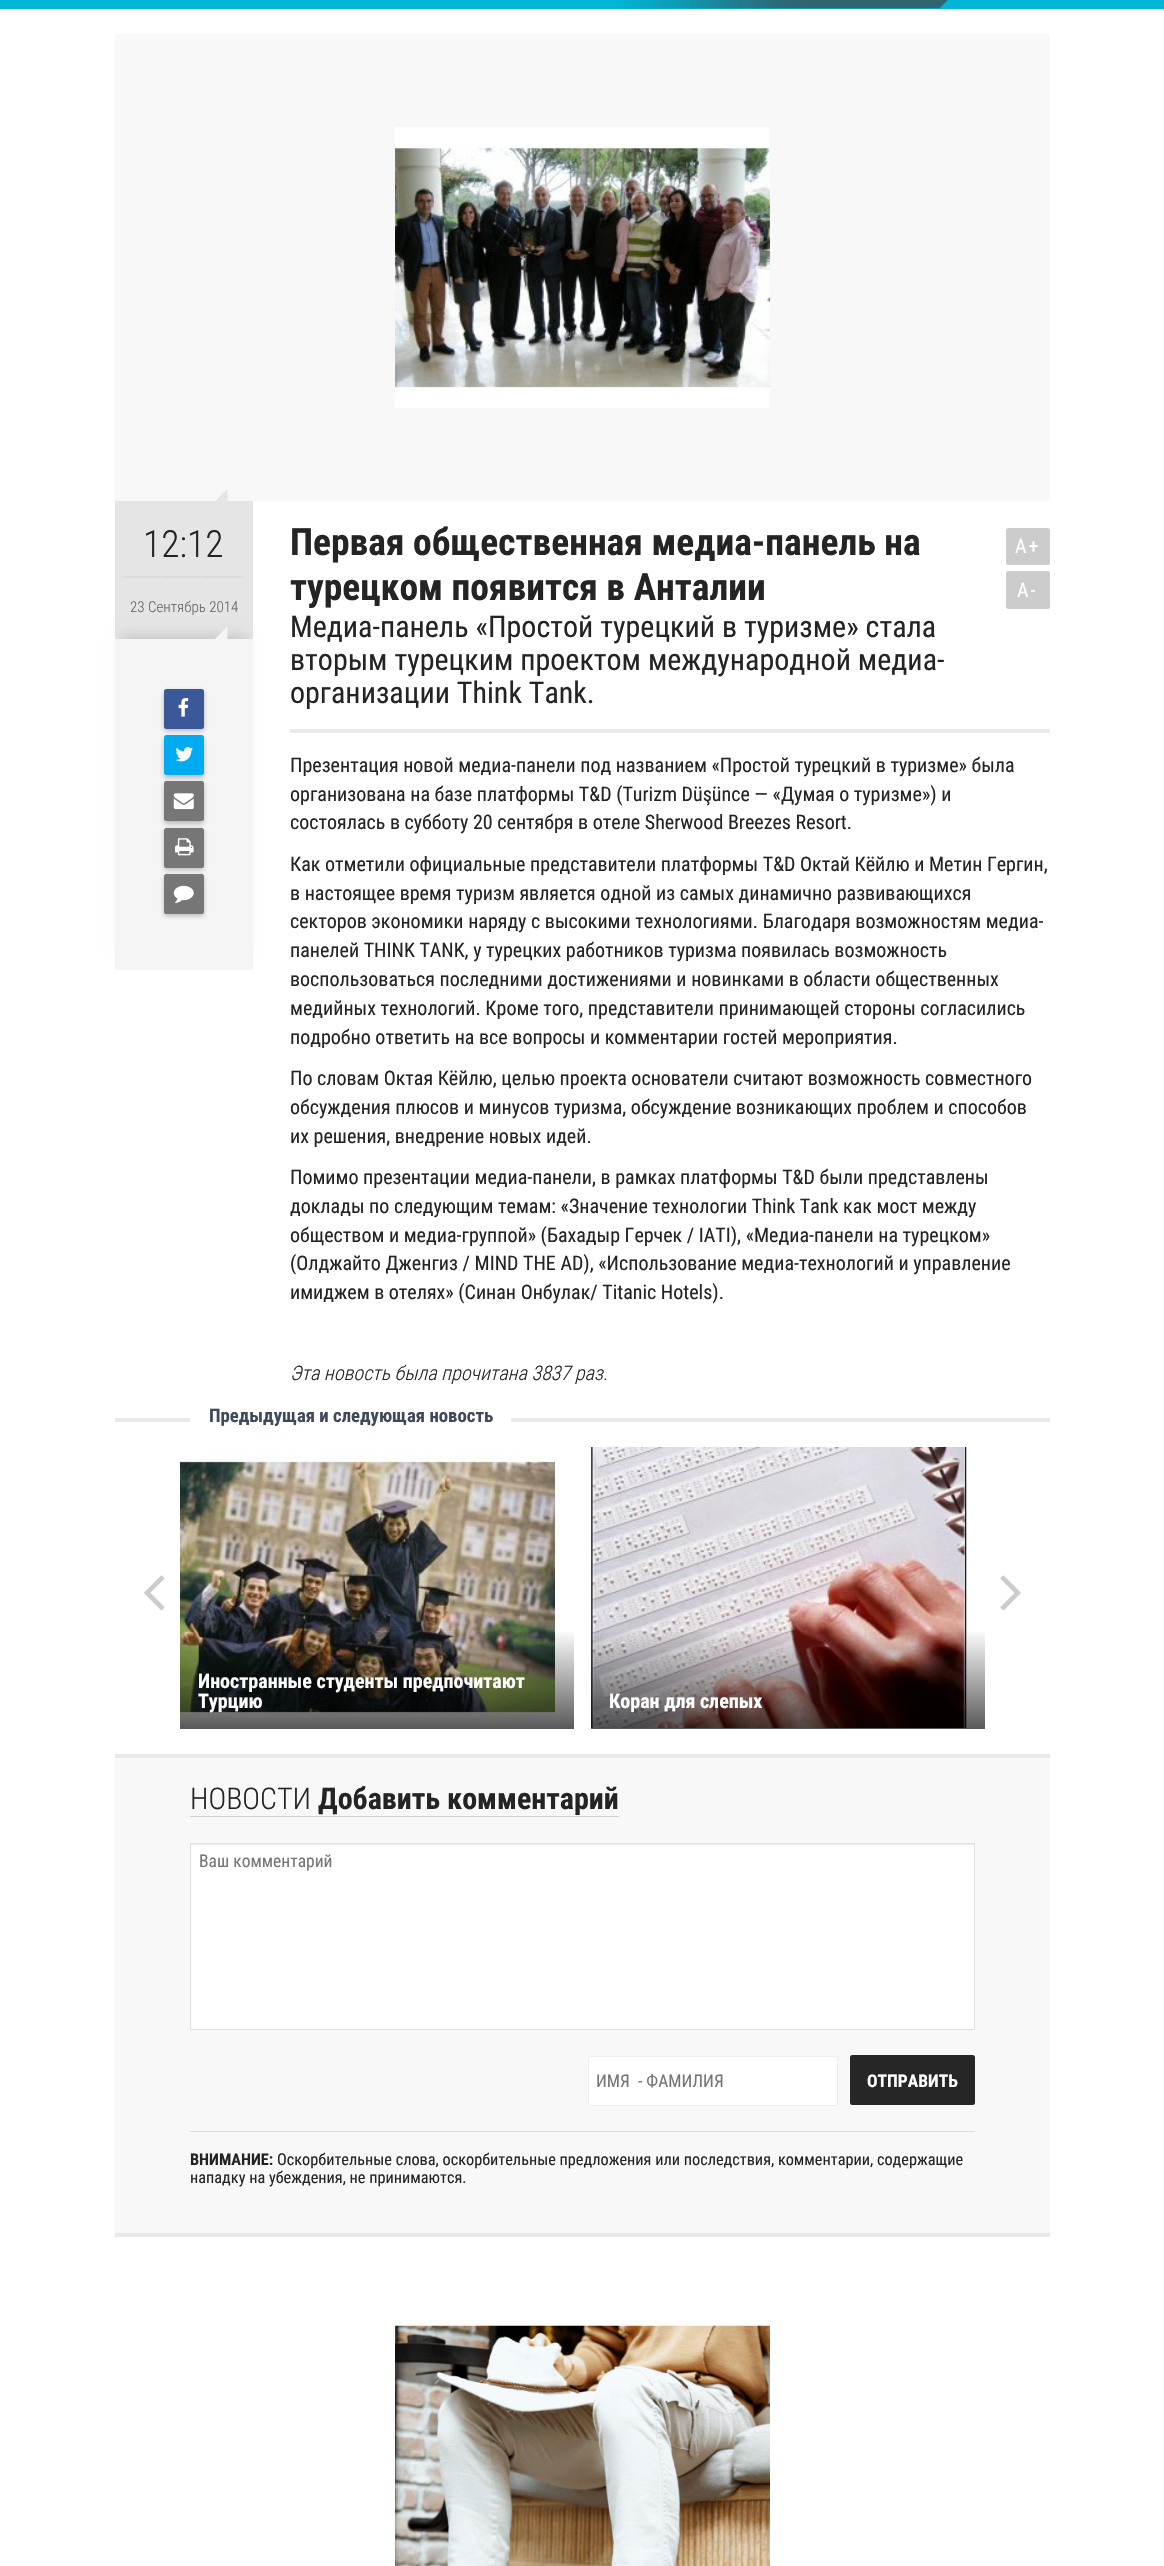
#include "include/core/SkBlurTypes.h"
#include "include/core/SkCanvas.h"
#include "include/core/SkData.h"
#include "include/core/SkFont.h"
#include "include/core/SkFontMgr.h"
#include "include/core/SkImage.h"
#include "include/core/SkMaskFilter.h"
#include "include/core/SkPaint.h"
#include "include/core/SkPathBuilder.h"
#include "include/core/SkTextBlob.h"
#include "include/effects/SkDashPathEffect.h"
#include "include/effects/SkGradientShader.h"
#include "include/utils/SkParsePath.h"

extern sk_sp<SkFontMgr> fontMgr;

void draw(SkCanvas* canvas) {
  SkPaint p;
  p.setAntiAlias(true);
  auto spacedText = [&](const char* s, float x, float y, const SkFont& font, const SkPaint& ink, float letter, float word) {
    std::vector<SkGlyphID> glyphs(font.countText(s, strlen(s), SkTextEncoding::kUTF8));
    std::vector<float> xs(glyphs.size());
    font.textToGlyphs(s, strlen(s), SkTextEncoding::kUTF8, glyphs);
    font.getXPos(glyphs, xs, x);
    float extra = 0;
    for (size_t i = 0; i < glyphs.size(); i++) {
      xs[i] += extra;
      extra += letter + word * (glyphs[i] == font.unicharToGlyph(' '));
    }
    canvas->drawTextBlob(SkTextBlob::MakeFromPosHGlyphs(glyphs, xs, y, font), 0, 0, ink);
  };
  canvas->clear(SK_ColorWHITE);
  p.setColor(SkColorSetRGB(0, 180, 213));
  canvas->drawRect(SkRect::MakeLTRB(0, 0, 1164, 9), p);
  canvas->drawImageRect(SkImages::DeferredFromEncodedData(SkData::MakeFromFileName("images/1.png")), SkRect::MakeLTRB(623, 0, 948, 9), SkSamplingOptions());
  p.setColor(SkColorSetRGB(248, 248, 248));
  canvas->drawRect(SkRect::MakeLTRB(115, 34, 1050, 501), p);
  canvas->drawImageRect(SkImages::DeferredFromEncodedData(SkData::MakeFromFileName("images/2.png")), SkRect::MakeLTRB(395, 127, 770, 408), SkSamplingOptions());
  p.setColor(SkColorSetRGB(229, 229, 229));
  canvas->drawRect(SkRect::MakeLTRB(115, 501, 253, 639), p);
  canvas->drawPath(SkPathBuilder().moveTo(227.5f, 501).lineTo(215, 501).lineTo(227.5f, 489).close().detach(), p);
  p.setStyle(SkPaint::kStroke_Style);
  p.setStrokeWidth(1.2f);
  p.setColor(SkColorSetRGB(195, 195, 195));
  p.setPathEffect(SkDashPathEffect::Make({{1.25f, 1.25f}}, 0));
  canvas->drawPath(SkPathBuilder().moveTo(124, 577).lineTo(244, 577).detach(), p);
  p.setPathEffect(nullptr);
  p.setStyle(SkPaint::kFill_Style);
  p.setColor(SkColorSetARGB(38, 0, 0, 0));
  p.setMaskFilter(SkMaskFilter::MakeBlur(kNormal_SkBlurStyle, 6));
  canvas->drawRect(SkRect::MakeLTRB(121, 636, 246, 955), p);
  p.setMaskFilter(nullptr);
  p.setColor(SkColorSetRGB(245, 245, 245));
  canvas->drawRect(SkRect::MakeLTRB(115, 639, 253, 970), p);
  canvas->drawPath(SkPathBuilder().moveTo(227.5f, 639).lineTo(215, 639).lineTo(227.5f, 626).close().detach(), p);
  p.setColor(SkColorSetARGB(77, 50, 50, 50));
  p.setMaskFilter(SkMaskFilter::MakeBlur(kNormal_SkBlurStyle, 2.5f));
  canvas->drawRoundRect(SkRect::MakeLTRB(164, 691, 204, 731), 2.5f, 2.5f, p);
  p.setMaskFilter(nullptr);
  p.setColor(SkColorSetRGB(59, 89, 152));
  canvas->drawRoundRect(SkRect::MakeLTRB(164, 689, 204, 729), 2.5f, 2.5f, p);
  canvas->drawImageRect(SkImages::DeferredFromEncodedData(SkData::MakeFromFileName("images/3.png")), SkRect::MakeLTRB(178, 698, 189, 717), SkSamplingOptions());
  p.setColor(SkColorSetARGB(77, 50, 50, 50));
  p.setMaskFilter(SkMaskFilter::MakeBlur(kNormal_SkBlurStyle, 2.5f));
  canvas->drawRoundRect(SkRect::MakeLTRB(164, 738, 204, 778), 2.5f, 2.5f, p);
  p.setMaskFilter(nullptr);
  p.setColor(SkColorSetRGB(0, 171, 241));
  canvas->drawRoundRect(SkRect::MakeLTRB(164, 735, 204, 775), 2.5f, 2.5f, p);
  canvas->drawImageRect(SkImages::DeferredFromEncodedData(SkData::MakeFromFileName("images/4.png")), SkRect::MakeLTRB(175, 747, 193, 762), SkSamplingOptions());
  p.setColor(SkColorSetARGB(77, 50, 50, 50));
  p.setMaskFilter(SkMaskFilter::MakeBlur(kNormal_SkBlurStyle, 2.5f));
  canvas->drawRoundRect(SkRect::MakeLTRB(164, 784, 204, 824), 2.5f, 2.5f, p);
  p.setMaskFilter(nullptr);
  p.setColor(SkColorSetRGB(118, 118, 118));
  canvas->drawRoundRect(SkRect::MakeLTRB(164, 781, 204, 821), 2.5f, 2.5f, p);
  canvas->drawImageRect(SkImages::DeferredFromEncodedData(SkData::MakeFromFileName("images/5.png")), SkRect::MakeLTRB(173, 793, 194, 810), SkSamplingOptions());
  p.setColor(SkColorSetARGB(77, 50, 50, 50));
  p.setMaskFilter(SkMaskFilter::MakeBlur(kNormal_SkBlurStyle, 2.5f));
  canvas->drawRoundRect(SkRect::MakeLTRB(164, 830, 204, 870), 2.5f, 2.5f, p);
  p.setMaskFilter(nullptr);
  p.setColor(SkColorSetRGB(118, 118, 118));
  canvas->drawRoundRect(SkRect::MakeLTRB(164, 828, 204, 868), 2.5f, 2.5f, p);
  canvas->drawImageRect(SkImages::DeferredFromEncodedData(SkData::MakeFromFileName("images/6.png")), SkRect::MakeLTRB(175, 838, 194, 856), SkSamplingOptions());
  p.setColor(SkColorSetARGB(77, 50, 50, 50));
  p.setMaskFilter(SkMaskFilter::MakeBlur(kNormal_SkBlurStyle, 2.5f));
  canvas->drawRoundRect(SkRect::MakeLTRB(164, 876, 204, 916), 2.5f, 2.5f, p);
  p.setMaskFilter(nullptr);
  p.setColor(SkColorSetRGB(118, 118, 118));
  canvas->drawRoundRect(SkRect::MakeLTRB(164, 874, 204, 914), 2.5f, 2.5f, p);
  canvas->drawImageRect(SkImages::DeferredFromEncodedData(SkData::MakeFromFileName("images/7.png")), SkRect::MakeLTRB(173, 885, 194, 903), SkSamplingOptions());
  p.setColor(SkColorSetRGB(233, 233, 233));
  canvas->drawRect(SkRect::MakeLTRB(290, 729, 1050, 733), p);
  p.setColor(SkColorSetRGB(204, 204, 204));
  canvas->drawRoundRect(SkRect::MakeLTRB(1006, 528, 1050, 565), 2.5f, 2.5f, p);
  canvas->drawRoundRect(SkRect::MakeLTRB(1006, 571, 1050, 609), 2.5f, 2.5f, p);
  p.setColor(SkColorSetRGB(233, 233, 233));
  canvas->drawRect(SkRect::MakeLTRB(115, 1418, 1050, 1422), p);
  p.setColor(SK_ColorWHITE);
  canvas->drawRect(SkRect::MakeLTRB(190, 1418, 511, 1422), p);
  canvas->drawImageRect(SkImages::DeferredFromEncodedData(SkData::MakeFromFileName("images/8.png")), SkRect::MakeLTRB(144, 1575, 165, 1611), SkSamplingOptions());
  canvas->drawImageRect(SkImages::DeferredFromEncodedData(SkData::MakeFromFileName("images/9.png")), SkRect::MakeLTRB(180, 1449, 555, 1725), SkSamplingOptions());
  {
    const SkColor colors[] = {SkColorSetARGB(0, 0, 0, 0), SkColorSetARGB(166, 0, 0, 0)};
    const float stops[] = {0, 1};
    const SkPoint ends[] = {{377, 1629}, {377, 1729}};
    p.setShader(SkGradientShader::MakeLinear(ends, colors, stops, 2, SkTileMode::kClamp));
    p.setAlpha(255);
  }
  canvas->drawRect(SkRect::MakeLTRB(180, 1632, 574, 1729), p);
  canvas->drawImageRect(SkImages::DeferredFromEncodedData(SkData::MakeFromFileName("images/10.png")), SkRect::MakeLTRB(591, 1447, 967, 1729), SkSamplingOptions());
  canvas->drawImageRect(SkImages::DeferredFromEncodedData(SkData::MakeFromFileName("images/11.png")), SkRect::MakeLTRB(1000, 1575, 1021, 1611), SkSamplingOptions());
  {
    const SkColor colors[] = {SkColorSetARGB(0, 0, 0, 0), SkColorSetARGB(166, 0, 0, 0)};
    const float stops[] = {0, 1};
    const SkPoint ends[] = {{788, 1629}, {788, 1729}};
    p.setShader(SkGradientShader::MakeLinear(ends, colors, stops, 2, SkTileMode::kClamp));
    p.setAlpha(255);
  }
  canvas->drawRect(SkRect::MakeLTRB(591, 1632, 985, 1729), p);
  p.setShader(nullptr);
  p.setColor(SkColorSetRGB(248, 248, 248));
  canvas->drawRect(SkRect::MakeLTRB(115, 1758, 1050, 2233), p);
  p.setColor(SkColorSetRGB(233, 233, 233));
  canvas->drawRect(SkRect::MakeLTRB(115, 1754, 1050, 1758), p);
  canvas->drawRect(SkRect::MakeLTRB(115, 2233, 1050, 2237), p);
  p.setColor(SkColorSetRGB(206, 206, 206));
  canvas->drawRect(SkRect::MakeLTRB(190, 1816, 619, 1817), p);
  p.setColor(SK_ColorWHITE);
  canvas->drawRect(SkRect::MakeLTRB(191, 1845, 974, 2029), p);
  p.setColor(SkColorSetRGB(236, 236, 236));
  canvas->drawRect(SkRect::MakeLTRB(191, 1844, 974, 1845), p);
  p.setStyle(SkPaint::kStroke_Style);
  p.setStrokeWidth(1);
  p.setColor(SkColorSetRGB(224, 224, 224));
  canvas->drawRect(SkRect::MakeLTRB(190.5f, 1843.5f, 974.5f, 2029.5f), p);
  p.setStyle(SkPaint::kFill_Style);
  p.setColor(SK_ColorWHITE);
  canvas->drawRoundRect(SkRect::MakeLTRB(588.5f, 2056.5f, 837.5f, 2105.5f), 2, 2, p);
  p.setStyle(SkPaint::kStroke_Style);
  p.setColor(SkColorSetRGB(237, 237, 237));
  canvas->drawRoundRect(SkRect::MakeLTRB(588.5f, 2056.5f, 837.5f, 2105.5f), 2, 2, p);
  p.setStyle(SkPaint::kFill_Style);
  p.setColor(SkColorSetRGB(38, 38, 38));
  canvas->drawRoundRect(SkRect::MakeLTRB(850, 2055, 975, 2105), 2.5f, 2.5f, p);
  p.setColor(SkColorSetRGB(221, 221, 221));
  canvas->drawRect(SkRect::MakeLTRB(190, 2131, 975, 2132), p);
  canvas->drawImageRect(SkImages::DeferredFromEncodedData(SkData::MakeFromFileName("images/12.png")), SkRect::MakeLTRB(395, 2325, 770, 2566), SkSamplingOptions());
  SkFont font1(fontMgr->matchFamilyStyle("Roboto Condensed", SkFontStyle(300, SkFontStyle::kNormal_Width, SkFontStyle::kUpright_Slant)), 37.5f);
  font1.setSubpixel(true);
  p.setColor(SkColorSetRGB(36, 36, 36));
  canvas->drawString("12:12", 143, 557, font1, p);
  SkFont font2(fontMgr->matchFamilyStyle("Roboto Condensed", SkFontStyle(300, SkFontStyle::kNormal_Width, SkFontStyle::kUpright_Slant)), 15);
  font2.setSubpixel(true);
  p.setColor(SkColorSetRGB(101, 101, 101));
  canvas->drawString("23 Сентябрь 2014", 130, 612, font2, p);
  SkFont font3(fontMgr->matchFamilyStyle("Roboto Condensed", SkFontStyle::Bold()), 37.5f);
  font3.setSubpixel(true);
  p.setColor(SkColorSetRGB(36, 36, 36));
  canvas->drawString("Первая общественная медиа-панель на", 290, 555, font3, p);
  canvas->drawString("турецком появится в Анталии", 290, 600, font3, p);
  SkFont font4(fontMgr->matchFamilyStyle("Roboto Condensed", SkFontStyle::Normal()), 20);
  font4.setSubpixel(true);
  p.setColor(SK_ColorWHITE);
  spacedText("A+", 1015, 553, font4, p, 2, 0);
  spacedText("A-", 1017, 597, font4, p, 2, 0);
  SkFont font5(fontMgr->matchFamilyStyle("Roboto Condensed", SkFontStyle::Normal()), 30);
  font5.setSubpixel(true);
  p.setColor(SkColorSetRGB(36, 36, 36));
  canvas->drawString("Медиа-панель «Простой турецкий в туризме» стала", 290, 637, font5, p);
  canvas->drawString("вторым турецким проектом международной медиа-", 290, 670, font5, p);
  canvas->drawString("организации Think Tank.", 290, 703, font5, p);
  canvas->drawString("Презентация новой медиа-панели под названием «Простой турецкий в туризме» была", 290, 772, font4, p);
  canvas->drawString("организована на базе платформы T&D (Turizm Düşünce — «Думая о туризме») и", 290, 801, font4, p);
  canvas->drawString("состоялась в субботу 20 сентября в отеле Sherwood Breezes Resort.", 290, 829, font4, p);
  canvas->drawString("Как отметили официальные представители платформы T&D Октай Кёйлю и Метин Гергин,", 290, 871, font4, p);
  canvas->drawString("в настоящее время туризм является одной из самых динамично развивающихся", 290, 900, font4, p);
  canvas->drawString("секторов экономики наряду с высокими технологиями. Благодаря возможностям медиа-", 290, 928, font4, p);
  canvas->drawString("панелей THINK TANK, у турецких работников туризма появилась возможность", 290, 957, font4, p);
  canvas->drawString("воспользоваться последними достижениями и новинками в области общественных", 290, 986, font4, p);
  canvas->drawString("медийных технологий. Кроме того, представители принимающей стороны согласились", 290, 1015, font4, p);
  canvas->drawString("подробно ответить на все вопросы и комментарии гостей мероприятия.", 290, 1044, font4, p);
  canvas->drawString("По словам Октая Кёйлю, целью проекта основатели считают возможность совместного", 290, 1085, font4, p);
  canvas->drawString("обсуждения плюсов и минусов туризма, обсуждение возникающих проблем и способов", 290, 1114, font4, p);
  canvas->drawString("их решения, внедрение новых идей.", 290, 1143, font4, p);
  canvas->drawString("Помимо презентации медиа-панели, в рамках платформы T&D были представлены", 290, 1184, font4, p);
  canvas->drawString("доклады по следующим темам: «Значение технологии Think Tank как мост между", 290, 1213, font4, p);
  canvas->drawString("обществом и медиа-группой» (Бахадыр Герчек / IATI), «Медиа-панели на турецком»", 290, 1242, font4, p);
  canvas->drawString("(Олджайто Дженгиз / MIND THE AD), «Использование медиа-технологий и управление", 290, 1270, font4, p);
  canvas->drawString("имиджем в отелях» (Синан Онбулак/ Titanic Hotels).", 290, 1299, font4, p);
  SkFont font6(fontMgr->matchFamilyStyle("Roboto Condensed", SkFontStyle(300, SkFontStyle::kNormal_Width, SkFontStyle::kItalic_Slant)), 20);
  font6.setSubpixel(true);
  canvas->drawString("Эта новость была прочитана 3837 раз.", 290, 1380, font6, p);
  SkFont font7(fontMgr->matchFamilyStyle("Roboto Condensed", SkFontStyle::Bold()), 18.75f);
  font7.setSubpixel(true);
  p.setColor(SkColorSetRGB(63, 73, 91));
  canvas->drawString("Предыдущая и следующая новость", 209, 1422, font7, p);
  SkFont font8(fontMgr->matchFamilyStyle("Roboto Condensed", SkFontStyle::Bold()), 20);
  font8.setSubpixel(true);
  p.setColor(SK_ColorWHITE);
  canvas->drawString("Иностранные студенты предпочитают", 198, 1688, font8, p);
  canvas->drawString("Турцию", 198, 1708, font8, p);
  canvas->drawString("Коран для слепых", 609, 1708, font8, p);
  SkFont font9(fontMgr->matchFamilyStyle("Roboto Condensed", SkFontStyle(300, SkFontStyle::kNormal_Width, SkFontStyle::kUpright_Slant)), 30);
  font9.setSubpixel(true);
  p.setColor(SkColorSetRGB(36, 36, 36));
  canvas->drawString("НОВОСТИ", 190, 1809, font9, p);
  SkFont font10(fontMgr->matchFamilyStyle("Roboto Condensed", SkFontStyle::Bold()), 30);
  font10.setSubpixel(true);
  canvas->drawString("Добавить комментарий", 318, 1809, font10, p);
  SkFont font11(fontMgr->matchFamilyStyle("Roboto Condensed", SkFontStyle::Normal()), 17.5f);
  font11.setSubpixel(true);
  p.setColor(SkColorSetRGB(117, 117, 117));
  canvas->drawString("Ваш комментарий", 199, 1867, font11, p);
  canvas->drawString("ИМЯ  - ФАМИЛИЯ", 596, 2087, font11, p);
  SkFont font12(fontMgr->matchFamilyStyle("Roboto Condensed", SkFontStyle::Bold()), 17.5f);
  font12.setSubpixel(true);
  p.setColor(SK_ColorWHITE);
  canvas->drawString("ОТПРАВИТЬ", 867, 2087, font12, p);
  SkFont font13(fontMgr->matchFamilyStyle("Roboto Condensed", SkFontStyle::Bold()), 16.25f);
  font13.setSubpixel(true);
  p.setColor(SkColorSetRGB(36, 36, 36));
  canvas->drawString("ВНИМАНИЕ:", 190, 2165, font13, p);
  SkFont font14(fontMgr->matchFamilyStyle("Roboto Condensed", SkFontStyle::Normal()), 16.25f);
  font14.setSubpixel(true);
  canvas->drawString("Оскорбительные слова, оскорбительные предложения или последствия, комментарии, содержащие", 277, 2165, font14, p);
  canvas->drawString("нападку на убеждения, не принимаются.", 190, 2183, font14, p);
}
